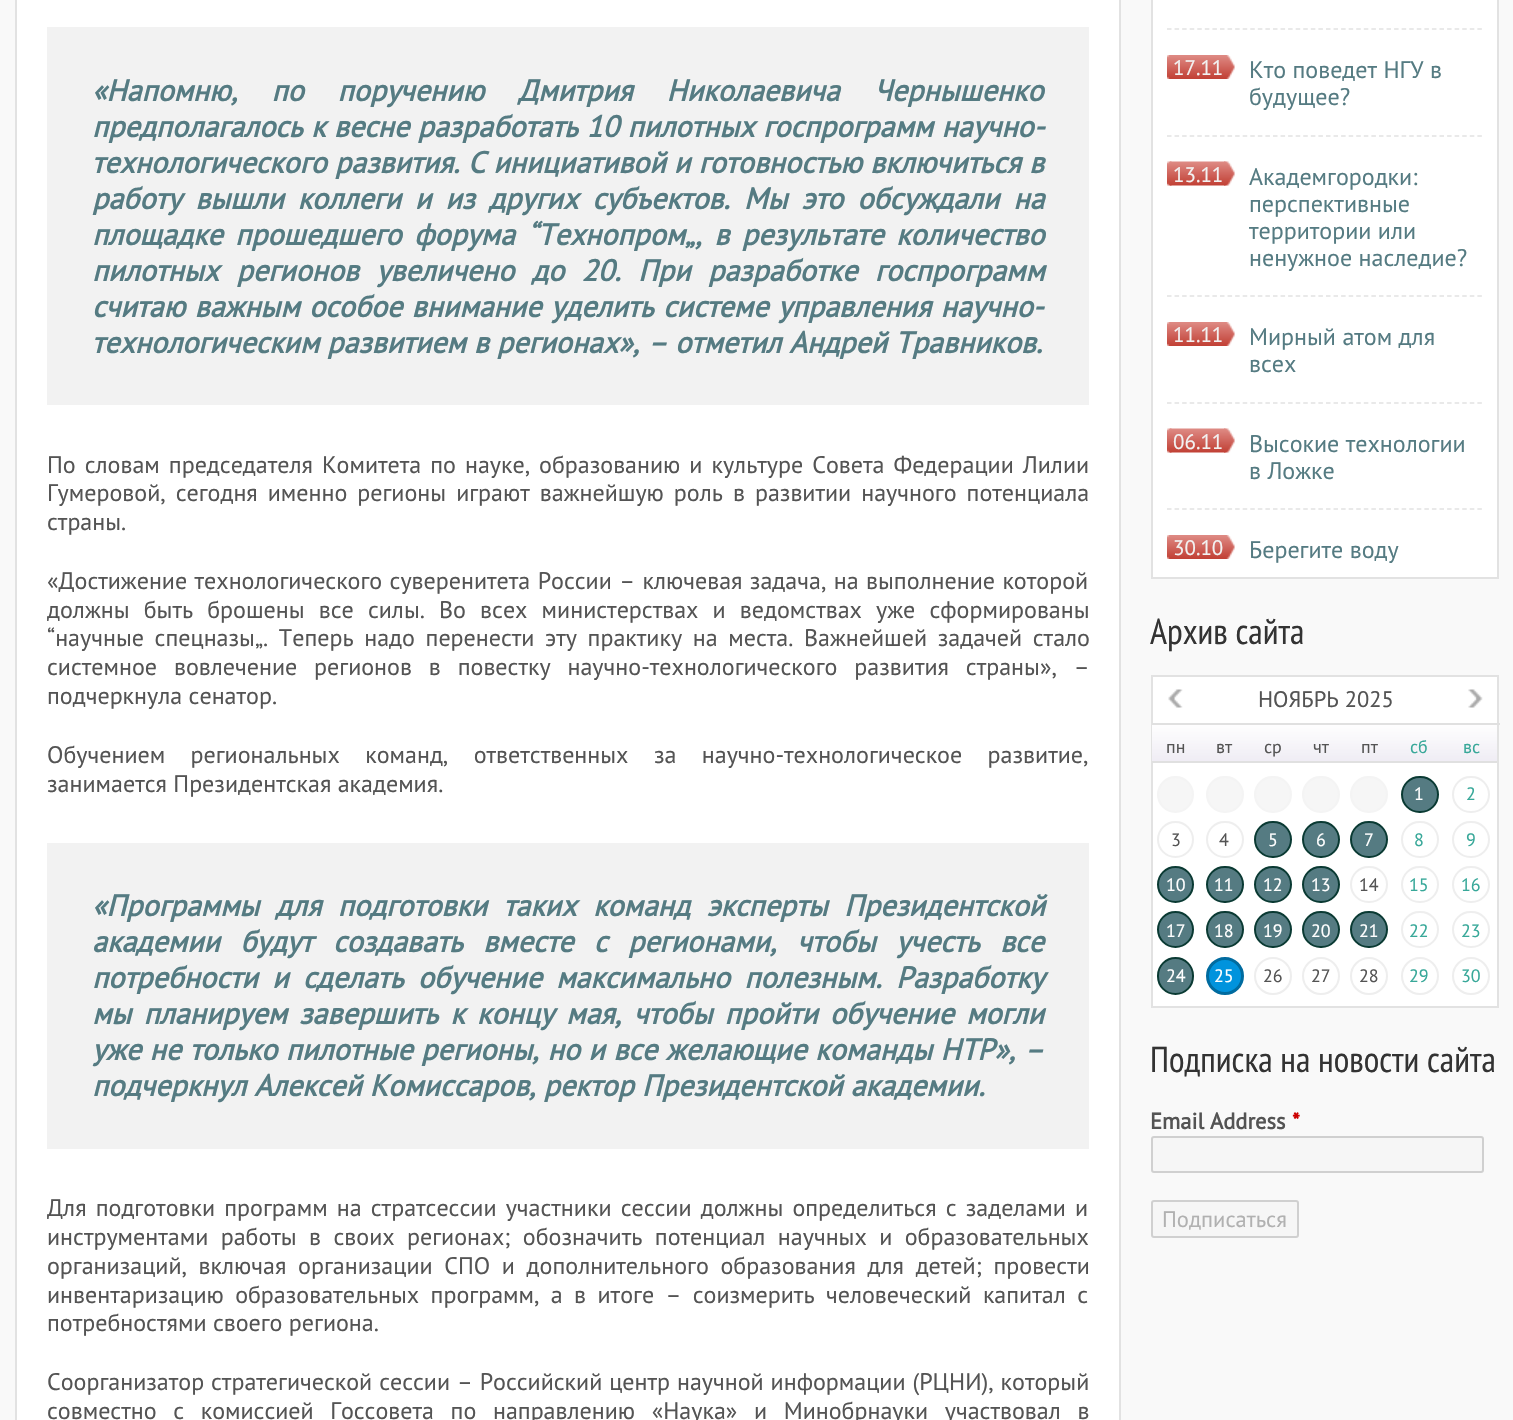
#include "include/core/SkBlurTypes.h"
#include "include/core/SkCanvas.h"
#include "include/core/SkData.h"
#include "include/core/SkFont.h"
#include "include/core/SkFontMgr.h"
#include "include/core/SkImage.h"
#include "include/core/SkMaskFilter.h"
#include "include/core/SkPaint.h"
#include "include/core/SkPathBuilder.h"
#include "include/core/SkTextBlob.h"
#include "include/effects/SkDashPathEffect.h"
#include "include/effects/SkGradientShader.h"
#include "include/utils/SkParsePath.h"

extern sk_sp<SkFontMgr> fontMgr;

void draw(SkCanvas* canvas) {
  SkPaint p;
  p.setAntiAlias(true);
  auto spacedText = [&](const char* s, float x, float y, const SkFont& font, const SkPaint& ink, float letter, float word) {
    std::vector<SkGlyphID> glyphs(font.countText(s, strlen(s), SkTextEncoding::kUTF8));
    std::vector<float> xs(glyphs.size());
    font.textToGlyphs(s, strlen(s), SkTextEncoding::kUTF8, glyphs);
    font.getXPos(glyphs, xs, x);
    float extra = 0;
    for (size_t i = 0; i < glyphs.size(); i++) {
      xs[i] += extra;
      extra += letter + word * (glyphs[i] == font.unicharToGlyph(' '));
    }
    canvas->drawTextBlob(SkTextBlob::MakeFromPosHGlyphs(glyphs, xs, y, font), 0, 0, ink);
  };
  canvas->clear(SkColorSetRGB(249, 249, 249));
  p.setColor(SK_ColorWHITE);
  canvas->drawRect(SkRect::MakeLTRB(16, -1, 1120, 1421), p);
  p.setStyle(SkPaint::kStroke_Style);
  p.setStrokeWidth(2);
  p.setColor(SkColorSetRGB(226, 226, 226));
  canvas->drawRect(SkRect::MakeLTRB(16, -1, 1120, 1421), p);
  p.setStyle(SkPaint::kFill_Style);
  p.setColor(SkColorSetRGB(242, 242, 242));
  canvas->drawRect(SkRect::MakeLTRB(47, 27, 1089, 405), p);
  canvas->drawRect(SkRect::MakeLTRB(47, 843, 1089, 1149), p);
  p.setColor(SK_ColorWHITE);
  canvas->drawRect(SkRect::MakeLTRB(1152, -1, 1498, 578), p);
  p.setStyle(SkPaint::kStroke_Style);
  p.setColor(SkColorSetRGB(226, 226, 226));
  canvas->drawRect(SkRect::MakeLTRB(1152, -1, 1498, 578), p);
  p.setStrokeWidth(1.5f);
  p.setPathEffect(SkDashPathEffect::Make({{4.5f, 3.07f}}, 0));
  canvas->drawPath(SkPathBuilder().moveTo(1167, 29).lineTo(1482, 29).detach(), p);
  p.setPathEffect(nullptr);
  p.setPathEffect(SkDashPathEffect::Make({{4.5f, 3.07f}}, 0));
  canvas->drawPath(SkPathBuilder().moveTo(1167, 136).lineTo(1482, 136).detach(), p);
  p.setPathEffect(nullptr);
  canvas->drawImageRect(SkImages::DeferredFromEncodedData(SkData::MakeFromFileName("images/1.png")), SkRect::MakeLTRB(1170, 55, 1225, 79), SkSamplingOptions());
  canvas->drawImageRect(SkImages::DeferredFromEncodedData(SkData::MakeFromFileName("images/2.png")), SkRect::MakeLTRB(1167, 55, 1170, 79), SkSamplingOptions());
  canvas->drawImageRect(SkImages::DeferredFromEncodedData(SkData::MakeFromFileName("images/3.png")), SkRect::MakeLTRB(1225, 55, 1235, 79), SkSamplingOptions());
  p.setPathEffect(SkDashPathEffect::Make({{4.5f, 3.07f}}, 0));
  canvas->drawPath(SkPathBuilder().moveTo(1167, 296).lineTo(1482, 296).detach(), p);
  p.setPathEffect(nullptr);
  canvas->drawImageRect(SkImages::DeferredFromEncodedData(SkData::MakeFromFileName("images/4.png")), SkRect::MakeLTRB(1170, 161, 1226, 186), SkSamplingOptions());
  canvas->drawImageRect(SkImages::DeferredFromEncodedData(SkData::MakeFromFileName("images/5.png")), SkRect::MakeLTRB(1167, 161, 1172, 186), SkSamplingOptions());
  canvas->drawImageRect(SkImages::DeferredFromEncodedData(SkData::MakeFromFileName("images/6.png")), SkRect::MakeLTRB(1224, 161, 1235, 186), SkSamplingOptions());
  p.setPathEffect(SkDashPathEffect::Make({{4.5f, 3.07f}}, 0));
  canvas->drawPath(SkPathBuilder().moveTo(1167, 403).lineTo(1482, 403).detach(), p);
  p.setPathEffect(nullptr);
  canvas->drawImageRect(SkImages::DeferredFromEncodedData(SkData::MakeFromFileName("images/1.png")), SkRect::MakeLTRB(1170, 322, 1225, 346), SkSamplingOptions());
  canvas->drawImageRect(SkImages::DeferredFromEncodedData(SkData::MakeFromFileName("images/2.png")), SkRect::MakeLTRB(1167, 322, 1170, 346), SkSamplingOptions());
  canvas->drawImageRect(SkImages::DeferredFromEncodedData(SkData::MakeFromFileName("images/3.png")), SkRect::MakeLTRB(1225, 322, 1235, 346), SkSamplingOptions());
  p.setPathEffect(SkDashPathEffect::Make({{4.5f, 3.07f}}, 0));
  canvas->drawPath(SkPathBuilder().moveTo(1167, 509).lineTo(1482, 509).detach(), p);
  p.setPathEffect(nullptr);
  canvas->drawImageRect(SkImages::DeferredFromEncodedData(SkData::MakeFromFileName("images/4.png")), SkRect::MakeLTRB(1170, 428, 1226, 453), SkSamplingOptions());
  canvas->drawImageRect(SkImages::DeferredFromEncodedData(SkData::MakeFromFileName("images/5.png")), SkRect::MakeLTRB(1167, 428, 1172, 453), SkSamplingOptions());
  canvas->drawImageRect(SkImages::DeferredFromEncodedData(SkData::MakeFromFileName("images/6.png")), SkRect::MakeLTRB(1224, 428, 1235, 453), SkSamplingOptions());
  canvas->drawImageRect(SkImages::DeferredFromEncodedData(SkData::MakeFromFileName("images/1.png")), SkRect::MakeLTRB(1170, 535, 1225, 559), SkSamplingOptions());
  canvas->drawImageRect(SkImages::DeferredFromEncodedData(SkData::MakeFromFileName("images/2.png")), SkRect::MakeLTRB(1167, 535, 1170, 559), SkSamplingOptions());
  canvas->drawImageRect(SkImages::DeferredFromEncodedData(SkData::MakeFromFileName("images/3.png")), SkRect::MakeLTRB(1225, 535, 1235, 559), SkSamplingOptions());
  p.setStyle(SkPaint::kFill_Style);
  p.setColor(SK_ColorWHITE);
  canvas->drawRect(SkRect::MakeLTRB(1152, 676, 1498, 1007), p);
  p.setStyle(SkPaint::kStroke_Style);
  p.setStrokeWidth(2);
  p.setColor(SkColorSetRGB(226, 226, 226));
  canvas->drawRect(SkRect::MakeLTRB(1152, 676, 1498, 1007), p);
  p.setStyle(SkPaint::kFill_Style);
  p.setColor(SkColorSetRGB(224, 224, 224));
  canvas->drawRect(SkRect::MakeLTRB(1152, 723, 1500, 725), p);
  canvas->drawImageRect(SkImages::DeferredFromEncodedData(SkData::MakeFromFileName("images/7.png")), SkRect::MakeLTRB(1168, 689, 1183, 708), SkSamplingOptions());
  canvas->drawImageRect(SkImages::DeferredFromEncodedData(SkData::MakeFromFileName("images/8.png")), SkRect::MakeLTRB(1468, 689, 1483, 708), SkSamplingOptions());
  canvas->drawImageRect(SkImages::DeferredFromEncodedData(SkData::MakeFromFileName("images/9.png")), SkRect::MakeLTRB(1152, 725, 1497, 761), SkSamplingOptions());
  canvas->drawRect(SkRect::MakeLTRB(1152, 761, 1497, 763), p);
  p.setColor(SkColorSetRGB(246, 246, 246));
  canvas->drawCircle(1175.5f, 794.5f, 17.5f, p);
  p.setStyle(SkPaint::kStroke_Style);
  p.setColor(SkColorSetRGB(244, 244, 244));
  canvas->drawCircle(1175.5f, 794.5f, 17.5f, p);
  p.setStyle(SkPaint::kFill_Style);
  p.setColor(SkColorSetRGB(246, 246, 246));
  canvas->drawRoundRect(SkRect::MakeLTRB(1207, 777, 1243, 812), 17.5f, 17.5f, p);
  p.setStyle(SkPaint::kStroke_Style);
  p.setColor(SkColorSetRGB(244, 244, 244));
  canvas->drawRoundRect(SkRect::MakeLTRB(1207, 777, 1243, 812), 17.5f, 17.5f, p);
  p.setStyle(SkPaint::kFill_Style);
  p.setColor(SkColorSetRGB(246, 246, 246));
  canvas->drawRoundRect(SkRect::MakeLTRB(1255, 777, 1291, 812), 17.5f, 17.5f, p);
  p.setStyle(SkPaint::kStroke_Style);
  p.setColor(SkColorSetRGB(244, 244, 244));
  canvas->drawRoundRect(SkRect::MakeLTRB(1255, 777, 1291, 812), 17.5f, 17.5f, p);
  p.setStyle(SkPaint::kFill_Style);
  p.setColor(SkColorSetRGB(246, 246, 246));
  canvas->drawRoundRect(SkRect::MakeLTRB(1303, 777, 1339, 812), 17.5f, 17.5f, p);
  p.setStyle(SkPaint::kStroke_Style);
  p.setColor(SkColorSetRGB(244, 244, 244));
  canvas->drawRoundRect(SkRect::MakeLTRB(1303, 777, 1339, 812), 17.5f, 17.5f, p);
  p.setStyle(SkPaint::kFill_Style);
  p.setColor(SkColorSetRGB(246, 246, 246));
  canvas->drawRoundRect(SkRect::MakeLTRB(1351, 777, 1387, 812), 17.5f, 17.5f, p);
  p.setStyle(SkPaint::kStroke_Style);
  p.setColor(SkColorSetRGB(244, 244, 244));
  canvas->drawRoundRect(SkRect::MakeLTRB(1351, 777, 1387, 812), 17.5f, 17.5f, p);
  p.setStyle(SkPaint::kFill_Style);
  p.setColor(SkColorSetRGB(85, 123, 130));
  canvas->drawRoundRect(SkRect::MakeLTRB(1402, 777, 1438, 812), 17.5f, 17.5f, p);
  p.setStyle(SkPaint::kStroke_Style);
  p.setColor(SkColorSetRGB(10, 58, 51));
  canvas->drawRoundRect(SkRect::MakeLTRB(1402, 777, 1438, 812), 17.5f, 17.5f, p);
  p.setColor(SkColorSetRGB(238, 238, 238));
  canvas->drawRoundRect(SkRect::MakeLTRB(1453, 777, 1489, 812), 17.5f, 17.5f, p);
  canvas->drawCircle(1175.5f, 839.5f, 17.5f, p);
  canvas->drawRoundRect(SkRect::MakeLTRB(1207, 822, 1243, 857), 17.5f, 17.5f, p);
  p.setStyle(SkPaint::kFill_Style);
  p.setColor(SkColorSetRGB(85, 123, 130));
  canvas->drawRoundRect(SkRect::MakeLTRB(1255, 822, 1291, 857), 17.5f, 17.5f, p);
  p.setStyle(SkPaint::kStroke_Style);
  p.setColor(SkColorSetRGB(10, 58, 51));
  canvas->drawRoundRect(SkRect::MakeLTRB(1255, 822, 1291, 857), 17.5f, 17.5f, p);
  p.setStyle(SkPaint::kFill_Style);
  p.setColor(SkColorSetRGB(85, 123, 130));
  canvas->drawRoundRect(SkRect::MakeLTRB(1303, 822, 1339, 857), 17.5f, 17.5f, p);
  p.setStyle(SkPaint::kStroke_Style);
  p.setColor(SkColorSetRGB(10, 58, 51));
  canvas->drawRoundRect(SkRect::MakeLTRB(1303, 822, 1339, 857), 17.5f, 17.5f, p);
  p.setStyle(SkPaint::kFill_Style);
  p.setColor(SkColorSetRGB(85, 123, 130));
  canvas->drawRoundRect(SkRect::MakeLTRB(1351, 822, 1387, 857), 17.5f, 17.5f, p);
  p.setStyle(SkPaint::kStroke_Style);
  p.setColor(SkColorSetRGB(10, 58, 51));
  canvas->drawRoundRect(SkRect::MakeLTRB(1351, 822, 1387, 857), 17.5f, 17.5f, p);
  p.setColor(SkColorSetRGB(238, 238, 238));
  canvas->drawRoundRect(SkRect::MakeLTRB(1402, 822, 1438, 857), 17.5f, 17.5f, p);
  canvas->drawRoundRect(SkRect::MakeLTRB(1453, 822, 1489, 857), 17.5f, 17.5f, p);
  p.setStyle(SkPaint::kFill_Style);
  p.setColor(SkColorSetRGB(85, 123, 130));
  canvas->drawCircle(1175.5f, 884.5f, 17.5f, p);
  p.setStyle(SkPaint::kStroke_Style);
  p.setColor(SkColorSetRGB(10, 58, 51));
  canvas->drawCircle(1175.5f, 884.5f, 17.5f, p);
  p.setStyle(SkPaint::kFill_Style);
  p.setColor(SkColorSetRGB(85, 123, 130));
  canvas->drawRoundRect(SkRect::MakeLTRB(1207, 867, 1243, 902), 17.5f, 17.5f, p);
  p.setStyle(SkPaint::kStroke_Style);
  p.setColor(SkColorSetRGB(10, 58, 51));
  canvas->drawRoundRect(SkRect::MakeLTRB(1207, 867, 1243, 902), 17.5f, 17.5f, p);
  p.setStyle(SkPaint::kFill_Style);
  p.setColor(SkColorSetRGB(85, 123, 130));
  canvas->drawRoundRect(SkRect::MakeLTRB(1255, 867, 1291, 902), 17.5f, 17.5f, p);
  p.setStyle(SkPaint::kStroke_Style);
  p.setColor(SkColorSetRGB(10, 58, 51));
  canvas->drawRoundRect(SkRect::MakeLTRB(1255, 867, 1291, 902), 17.5f, 17.5f, p);
  p.setStyle(SkPaint::kFill_Style);
  p.setColor(SkColorSetRGB(85, 123, 130));
  canvas->drawRoundRect(SkRect::MakeLTRB(1303, 867, 1339, 902), 17.5f, 17.5f, p);
  p.setStyle(SkPaint::kStroke_Style);
  p.setColor(SkColorSetRGB(10, 58, 51));
  canvas->drawRoundRect(SkRect::MakeLTRB(1303, 867, 1339, 902), 17.5f, 17.5f, p);
  p.setColor(SkColorSetRGB(238, 238, 238));
  canvas->drawRoundRect(SkRect::MakeLTRB(1351, 867, 1387, 902), 17.5f, 17.5f, p);
  canvas->drawRoundRect(SkRect::MakeLTRB(1402, 867, 1438, 902), 17.5f, 17.5f, p);
  canvas->drawRoundRect(SkRect::MakeLTRB(1453, 867, 1489, 902), 17.5f, 17.5f, p);
  p.setStyle(SkPaint::kFill_Style);
  p.setColor(SkColorSetRGB(85, 123, 130));
  canvas->drawCircle(1175.5f, 929.5f, 17.5f, p);
  p.setStyle(SkPaint::kStroke_Style);
  p.setColor(SkColorSetRGB(10, 58, 51));
  canvas->drawCircle(1175.5f, 929.5f, 17.5f, p);
  p.setStyle(SkPaint::kFill_Style);
  p.setColor(SkColorSetRGB(85, 123, 130));
  canvas->drawRoundRect(SkRect::MakeLTRB(1207, 912, 1243, 947), 17.5f, 17.5f, p);
  p.setStyle(SkPaint::kStroke_Style);
  p.setColor(SkColorSetRGB(10, 58, 51));
  canvas->drawRoundRect(SkRect::MakeLTRB(1207, 912, 1243, 947), 17.5f, 17.5f, p);
  p.setStyle(SkPaint::kFill_Style);
  p.setColor(SkColorSetRGB(85, 123, 130));
  canvas->drawRoundRect(SkRect::MakeLTRB(1255, 912, 1291, 947), 17.5f, 17.5f, p);
  p.setStyle(SkPaint::kStroke_Style);
  p.setColor(SkColorSetRGB(10, 58, 51));
  canvas->drawRoundRect(SkRect::MakeLTRB(1255, 912, 1291, 947), 17.5f, 17.5f, p);
  p.setStyle(SkPaint::kFill_Style);
  p.setColor(SkColorSetRGB(85, 123, 130));
  canvas->drawRoundRect(SkRect::MakeLTRB(1303, 912, 1339, 947), 17.5f, 17.5f, p);
  p.setStyle(SkPaint::kStroke_Style);
  p.setColor(SkColorSetRGB(10, 58, 51));
  canvas->drawRoundRect(SkRect::MakeLTRB(1303, 912, 1339, 947), 17.5f, 17.5f, p);
  p.setStyle(SkPaint::kFill_Style);
  p.setColor(SkColorSetRGB(85, 123, 130));
  canvas->drawRoundRect(SkRect::MakeLTRB(1351, 912, 1387, 947), 17.5f, 17.5f, p);
  p.setStyle(SkPaint::kStroke_Style);
  p.setColor(SkColorSetRGB(10, 58, 51));
  canvas->drawRoundRect(SkRect::MakeLTRB(1351, 912, 1387, 947), 17.5f, 17.5f, p);
  p.setColor(SkColorSetRGB(238, 238, 238));
  canvas->drawRoundRect(SkRect::MakeLTRB(1402, 912, 1438, 947), 17.5f, 17.5f, p);
  canvas->drawRoundRect(SkRect::MakeLTRB(1453, 912, 1489, 947), 17.5f, 17.5f, p);
  p.setStyle(SkPaint::kFill_Style);
  p.setColor(SkColorSetRGB(85, 123, 130));
  canvas->drawRoundRect(SkRect::MakeLTRB(1158, 958, 1193, 994), 17.5f, 17.5f, p);
  p.setStyle(SkPaint::kStroke_Style);
  p.setColor(SkColorSetRGB(10, 58, 51));
  canvas->drawRoundRect(SkRect::MakeLTRB(1158, 958, 1193, 994), 17.5f, 17.5f, p);
  p.setStyle(SkPaint::kFill_Style);
  p.setColor(SkColorSetRGB(0, 147, 221));
  canvas->drawCircle(1225, 976, 17.5f, p);
  p.setStyle(SkPaint::kStroke_Style);
  p.setStrokeWidth(3);
  p.setColor(SkColorSetRGB(0, 107, 159));
  canvas->drawCircle(1225, 976, 17.5f, p);
  p.setStrokeWidth(2);
  p.setColor(SkColorSetRGB(238, 238, 238));
  canvas->drawCircle(1273, 976, 18, p);
  canvas->drawCircle(1321, 976, 18, p);
  canvas->drawCircle(1369, 976, 18, p);
  canvas->drawCircle(1420, 976, 18, p);
  canvas->drawCircle(1471, 976, 18, p);
  p.setStyle(SkPaint::kFill_Style);
  p.setColor(SkColorSetRGB(246, 246, 246));
  canvas->drawRoundRect(SkRect::MakeLTRB(1152, 1137, 1483, 1172), 2, 2, p);
  p.setStyle(SkPaint::kStroke_Style);
  p.setColor(SkColorSetRGB(208, 208, 208));
  canvas->drawRoundRect(SkRect::MakeLTRB(1152, 1137, 1483, 1172), 2, 2, p);
  p.setStyle(SkPaint::kFill_Style);
  p.setColor(SkColorSetRGB(246, 246, 246));
  canvas->drawRoundRect(SkRect::MakeLTRB(1152, 1201, 1298, 1237), 2, 2, p);
  p.setStyle(SkPaint::kStroke_Style);
  p.setColor(SkColorSetRGB(208, 208, 208));
  canvas->drawRoundRect(SkRect::MakeLTRB(1152, 1201, 1298, 1237), 2, 2, p);
  SkFont font1(fontMgr->matchFamilyStyle("PT Sans", SkFontStyle::BoldItalic()), 30);
  font1.setSubpixel(true);
  p.setStyle(SkPaint::kFill_Style);
  p.setColor(SkColorSetRGB(85, 123, 130));
  spacedText("«Напомню, по поручению Дмитрия Николаевича Чернышенко", 92, 101, font1, p, 0, 26);
  spacedText("предполагалось к весне разработать 10 пилотных госпрограмм научно-", 92, 137, font1, p, 0, 0.5f);
  spacedText("технологического развития. С инициативой и готовностью включиться в", 92, 173, font1, p, 0, 0.25f);
  spacedText("работу вышли коллеги и из других субъектов. Мы это обсуждали на", 92, 209, font1, p, 0, 6);
  spacedText("площадке прошедшего форума “Технопром„, в результате количество", 92, 245, font1, p, 0, 4.5f);
  spacedText("пилотных регионов увеличено до 20. При разработке госпрограмм", 92, 281, font1, p, 0, 9.5f);
  spacedText("считаю важным особое внимание уделить системе управления научно-", 92, 317, font1, p, 0, 1.5f);
  canvas->drawString("технологическим развитием в регионах», – отметил Андрей Травников.", 92, 353, font1, p);
  SkFont font2(fontMgr->matchFamilyStyle("PT Sans", SkFontStyle::Normal()), 24);
  font2.setSubpixel(true);
  p.setColor(SkColorSetRGB(84, 84, 84));
  spacedText("По словам председателя Комитета по науке, образованию и культуре Совета Федерации Лилии", 47, 473, font2, p, 0, 2.6f);
  spacedText("Гумеровой, сегодня именно регионы играют важнейшую роль в развитии научного потенциала", 47, 501, font2, p, 0, 3.6f);
  canvas->drawString("страны.", 47, 530, font2, p);
  spacedText("«Достижение технологического суверенитета России – ключевая задача, на выполнение которой", 47, 589, font2, p, 0, 1);
  canvas->save();
  canvas->clipRect(SkRect::MakeLTRB(47, 0, 1089, 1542));
  spacedText("должны быть брошены все силы. Во всех министерствах и ведомствах уже сформированы", 47, 618, font2, p, 0, 7.75f);
  canvas->restore();
  spacedText("“научные спецназы„. Теперь надо перенести эту практику на места. Важнейшей задачей стало", 47, 646, font2, p, 0, 4.25f);
  spacedText("системное вовлечение регионов в повестку научно-технологического развития страны», –", 47, 675, font2, p, 0, 10.5f);
  canvas->drawString("подчеркнула сенатор.", 47, 704, font2, p);
  spacedText("Обучением региональных команд, ответственных за научно-технологическое развитие,", 47, 763, font2, p, 0, 19);
  canvas->drawString("занимается Президентская академия.", 47, 792, font2, p);
  p.setColor(SkColorSetRGB(85, 123, 130));
  spacedText("«Программы для подготовки таких команд эксперты Президентской", 92, 916, font1, p, 0, 8.5f);
  spacedText("академии будут создавать вместе с регионами, чтобы учесть все", 92, 952, font1, p, 0, 12.5f);
  spacedText("потребности и сделать обучение максимально полезным. Разработку", 92, 988, font1, p, 0, 6.25f);
  spacedText("мы планируем завершить к концу мая, чтобы пройти обучение могли", 92, 1024, font1, p, 0, 4.25f);
  spacedText("уже не только пилотные регионы, но и все желающие команды НТР», –", 92, 1060, font1, p, 0, 0.6f);
  canvas->drawString("подчеркнул Алексей Комиссаров, ректор Президентской академии.", 92, 1096, font1, p);
  canvas->save();
  canvas->clipRect(SkRect::MakeLTRB(47, 0, 1089, 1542));
  p.setColor(SkColorSetRGB(84, 84, 84));
  spacedText("Для подготовки программ на стратсессии участники сессии должны определиться с заделами и", 47, 1216, font2, p, 0, 2.75f);
  canvas->restore();
  spacedText("инструментами работы в своих регионах; обозначить потенциал научных и образовательных", 47, 1245, font2, p, 0, 6);
  spacedText("организаций, включая организации СПО и дополнительного образования для детей; провести", 47, 1274, font2, p, 0, 5.25f);
  spacedText("инвентаризацию образовательных программ, а в итоге – соизмерить человеческий капитал с", 47, 1303, font2, p, 0, 5);
  canvas->drawString("потребностями своего региона.", 47, 1331, font2, p);
  spacedText("Соорганизатор стратегической сессии – Российский центр научной информации (РЦНИ), который", 47, 1390, font2, p, 0, 0.5f);
  spacedText("совместно с комиссией Госсовета по направлению «Наука» и Минобрнауки участвовал в", 47, 1419, font2, p, 0, 10.25f);
  SkFont font3(fontMgr->matchFamilyStyle("PT Sans", SkFontStyle::Normal()), 21);
  font3.setSubpixel(true);
  p.setColor(SkColorSetRGB(242, 242, 242));
  canvas->drawString("17.11", 1173, 75, font3, p);
  p.setColor(SkColorSetRGB(85, 123, 130));
  canvas->drawString("Кто поведет НГУ в", 1249, 78, font2, p);
  canvas->drawString("будущее?", 1249, 105, font2, p);
  p.setColor(SkColorSetRGB(242, 242, 242));
  canvas->drawString("13.11", 1173, 182, font3, p);
  p.setColor(SkColorSetRGB(85, 123, 130));
  canvas->drawString("Академгородки:", 1249, 185, font2, p);
  canvas->drawString("перспективные", 1249, 212, font2, p);
  canvas->drawString("территории или", 1249, 239, font2, p);
  canvas->drawString("ненужное наследие?", 1249, 266, font2, p);
  p.setColor(SkColorSetRGB(242, 242, 242));
  canvas->drawString("11.11", 1173, 342, font3, p);
  p.setColor(SkColorSetRGB(85, 123, 130));
  canvas->drawString("Мирный атом для", 1249, 345, font2, p);
  canvas->drawString("всех", 1249, 372, font2, p);
  p.setColor(SkColorSetRGB(242, 242, 242));
  canvas->drawString("06.11", 1173, 449, font3, p);
  p.setColor(SkColorSetRGB(85, 123, 130));
  canvas->drawString("Высокие технологии", 1249, 452, font2, p);
  canvas->drawString("в Ложке", 1249, 479, font2, p);
  p.setColor(SkColorSetRGB(242, 242, 242));
  canvas->drawString("30.10", 1173, 555, font3, p);
  p.setColor(SkColorSetRGB(85, 123, 130));
  canvas->drawString("Берегите воду", 1249, 558, font2, p);
  SkFont font4(fontMgr->matchFamilyStyle("PT Sans Narrow", SkFontStyle::Normal()), 36);
  font4.setSubpixel(true);
  p.setColor(SkColorSetRGB(51, 51, 51));
  canvas->drawString("Архив сайта", 1150, 644, font4, p);
  SkFont font5(fontMgr->matchFamilyStyle("PT Sans", SkFontStyle::Normal()), 22.5f);
  font5.setSubpixel(true);
  p.setColor(SkColorSetRGB(84, 84, 84));
  canvas->drawString("НОЯБРЬ 2025", 1258, 707, font5, p);
  SkFont font6(fontMgr->matchFamilyStyle("PT Sans", SkFontStyle::Normal()), 18);
  font6.setSubpixel(true);
  canvas->drawString("пн", 1166, 753, font6, p);
  canvas->drawString("вт", 1216, 753, font6, p);
  canvas->drawString("ср", 1264, 753, font6, p);
  canvas->drawString("чт", 1313, 753, font6, p);
  canvas->drawString("пт", 1361, 753, font6, p);
  p.setColor(SkColorSetRGB(56, 168, 153));
  canvas->drawString("сб", 1410, 753, font6, p);
  canvas->drawString("вс", 1463, 753, font6, p);
  p.setColor(SK_ColorWHITE);
  canvas->drawString("1", 1414, 800, font6, p);
  p.setColor(SkColorSetRGB(56, 168, 153));
  canvas->drawString("2", 1466, 800, font6, p);
  p.setColor(SkColorSetRGB(84, 84, 84));
  canvas->drawString("3", 1171, 846, font6, p);
  canvas->drawString("4", 1219, 846, font6, p);
  p.setColor(SK_ColorWHITE);
  canvas->drawString("5", 1268, 846, font6, p);
  canvas->drawString("6", 1316, 846, font6, p);
  canvas->drawString("7", 1364, 846, font6, p);
  p.setColor(SkColorSetRGB(56, 168, 153));
  canvas->drawString("8", 1414, 846, font6, p);
  canvas->drawString("9", 1466, 846, font6, p);
  p.setColor(SK_ColorWHITE);
  canvas->drawString("10", 1166, 891, font6, p);
  canvas->drawString("11", 1214, 891, font6, p);
  canvas->drawString("12", 1263, 891, font6, p);
  canvas->drawString("13", 1311, 891, font6, p);
  p.setColor(SkColorSetRGB(84, 84, 84));
  canvas->drawString("14", 1359, 891, font6, p);
  p.setColor(SkColorSetRGB(56, 168, 153));
  canvas->drawString("15", 1409, 891, font6, p);
  canvas->drawString("16", 1461, 891, font6, p);
  p.setColor(SK_ColorWHITE);
  canvas->drawString("17", 1166, 937, font6, p);
  canvas->drawString("18", 1214, 937, font6, p);
  canvas->drawString("19", 1263, 937, font6, p);
  canvas->drawString("20", 1311, 937, font6, p);
  canvas->drawString("21", 1359, 937, font6, p);
  p.setColor(SkColorSetRGB(56, 168, 153));
  canvas->drawString("22", 1409, 937, font6, p);
  canvas->drawString("23", 1461, 937, font6, p);
  p.setColor(SK_ColorWHITE);
  canvas->drawString("24", 1166, 982, font6, p);
  canvas->drawString("25", 1214, 982, font6, p);
  p.setColor(SkColorSetRGB(84, 84, 84));
  canvas->drawString("26", 1263, 982, font6, p);
  canvas->drawString("27", 1311, 982, font6, p);
  canvas->drawString("28", 1359, 982, font6, p);
  p.setColor(SkColorSetRGB(56, 168, 153));
  canvas->drawString("29", 1409, 982, font6, p);
  canvas->drawString("30", 1461, 982, font6, p);
  p.setColor(SkColorSetRGB(51, 51, 51));
  canvas->drawString("Подписка на новости сайта", 1150, 1072, font4, p);
  SkFont font7(fontMgr->matchFamilyStyle("PT Sans", SkFontStyle::Bold()), 22.5f);
  font7.setSubpixel(true);
  p.setColor(SkColorSetRGB(84, 84, 84));
  canvas->drawString("Email Address", 1150, 1129, font7, p);
  p.setColor(SkColorSetRGB(204, 0, 0));
  canvas->drawString("*", 1292, 1129, font7, p);
  p.setColor(SkColorSetRGB(177, 177, 177));
  canvas->drawString("Подписаться", 1162, 1227, font5, p);
}
